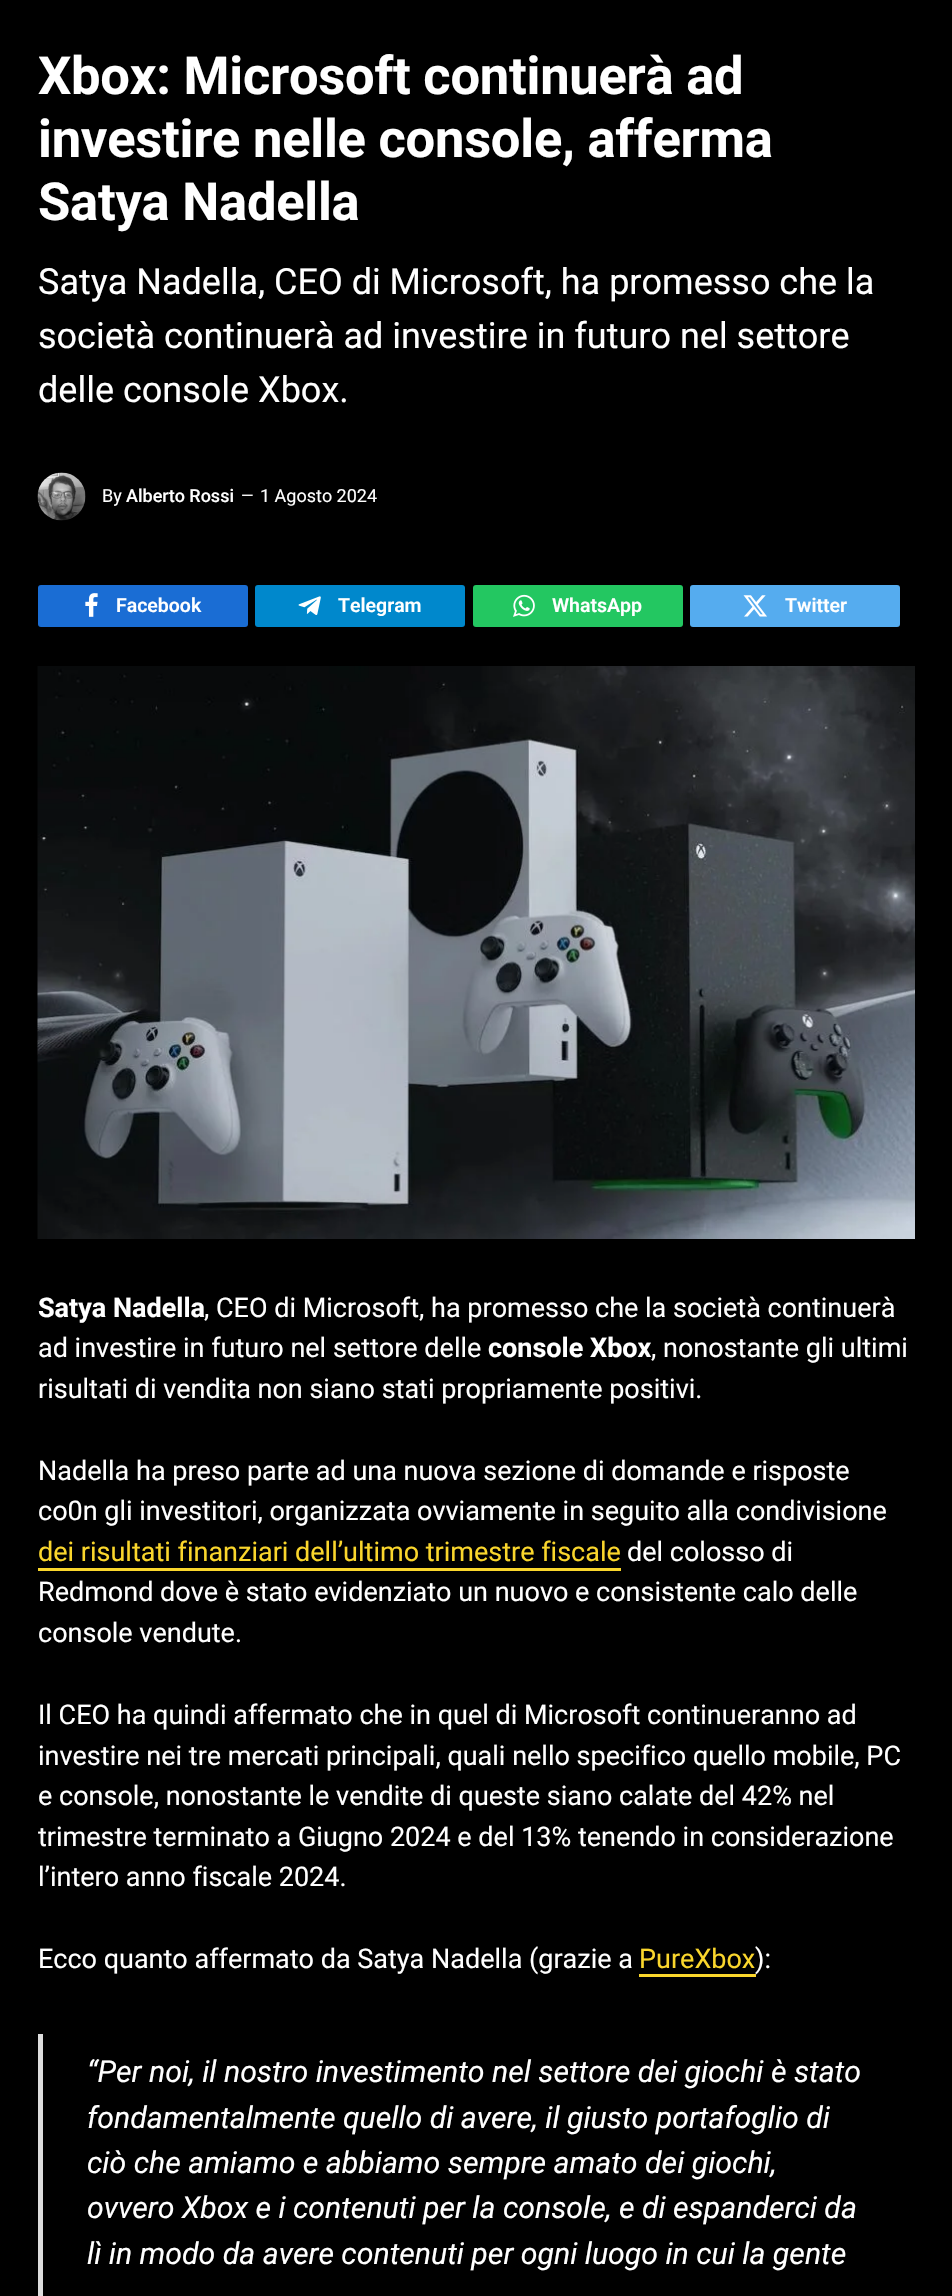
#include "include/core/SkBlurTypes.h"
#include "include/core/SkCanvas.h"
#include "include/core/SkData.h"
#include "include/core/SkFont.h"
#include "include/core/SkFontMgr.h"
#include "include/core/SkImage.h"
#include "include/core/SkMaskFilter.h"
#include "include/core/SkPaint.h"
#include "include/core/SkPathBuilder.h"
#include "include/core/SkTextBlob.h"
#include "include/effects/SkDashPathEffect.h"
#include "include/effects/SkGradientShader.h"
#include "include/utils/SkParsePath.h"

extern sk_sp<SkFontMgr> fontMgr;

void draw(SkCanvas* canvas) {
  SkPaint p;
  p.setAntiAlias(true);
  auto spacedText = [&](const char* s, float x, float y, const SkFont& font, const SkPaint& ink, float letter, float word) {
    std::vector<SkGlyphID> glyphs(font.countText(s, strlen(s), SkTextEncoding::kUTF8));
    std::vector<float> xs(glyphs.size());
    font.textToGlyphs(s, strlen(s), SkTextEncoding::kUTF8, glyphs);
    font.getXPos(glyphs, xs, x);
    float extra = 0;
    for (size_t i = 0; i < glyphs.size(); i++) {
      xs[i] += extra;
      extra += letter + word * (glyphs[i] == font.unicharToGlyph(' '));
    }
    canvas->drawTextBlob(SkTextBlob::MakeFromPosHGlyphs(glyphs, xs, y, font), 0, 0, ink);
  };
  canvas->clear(SK_ColorBLACK);
  canvas->drawImageRect(SkImages::DeferredFromEncodedData(SkData::MakeFromFileName("images/1.png")), SkRect::MakeLTRB(37, 472, 86, 521), SkSamplingOptions());
  p.setColor(SkColorSetRGB(26, 109, 212));
  canvas->drawRoundRect(SkRect::MakeLTRB(38, 585, 248, 627), 3, 3, p);
  canvas->drawImageRect(SkImages::DeferredFromEncodedData(SkData::MakeFromFileName("images/2.png")), SkRect::MakeLTRB(85, 593, 98, 617), SkSamplingOptions());
  p.setColor(SkColorSetRGB(0, 136, 204));
  canvas->drawRoundRect(SkRect::MakeLTRB(255, 585, 465, 627), 3, 3, p);
  canvas->drawImageRect(SkImages::DeferredFromEncodedData(SkData::MakeFromFileName("images/3.png")), SkRect::MakeLTRB(298, 596, 321, 615), SkSamplingOptions());
  p.setColor(SkColorSetRGB(35, 199, 97));
  canvas->drawRoundRect(SkRect::MakeLTRB(473, 585, 683, 627), 3, 3, p);
  canvas->drawImageRect(SkImages::DeferredFromEncodedData(SkData::MakeFromFileName("images/4.png")), SkRect::MakeLTRB(513, 594, 535, 617), SkSamplingOptions());
  p.setColor(SkColorSetRGB(85, 172, 239));
  canvas->drawRoundRect(SkRect::MakeLTRB(690, 585, 900, 627), 3, 3, p);
  canvas->drawImageRect(SkImages::DeferredFromEncodedData(SkData::MakeFromFileName("images/5.png")), SkRect::MakeLTRB(743, 595, 767, 617), SkSamplingOptions());
  canvas->drawImageRect(SkImages::DeferredFromEncodedData(SkData::MakeFromFileName("images/6.png")), SkRect::MakeLTRB(37, 666, 915, 1239), SkSamplingOptions());
  p.setColor(SkColorSetRGB(250, 214, 44));
  canvas->drawRect(SkRect::MakeLTRB(38, 1568, 621, 1571), p);
  canvas->drawRect(SkRect::MakeLTRB(639, 1974, 756, 1977), p);
  p.setColor(SkColorSetRGB(221, 221, 221));
  canvas->drawRect(SkRect::MakeLTRB(38, 2034, 43, 2296), p);
  SkFont font1(fontMgr->matchFamilyStyle("Roboto", SkFontStyle::Bold()), 52.5f);
  font1.setSubpixel(true);
  p.setColor(SK_ColorWHITE);
  spacedText("Xbox: Microsoft continuerà ad", 38, 94, font1, p, -0.25f, 0);
  spacedText("investire nelle console, afferma", 38, 157, font1, p, -0.25f, 0);
  spacedText("Satya Nadella", 38, 220, font1, p, -0.25f, 0);
  SkFont font2(fontMgr->matchFamilyStyle("Roboto", SkFontStyle::Normal()), 36);
  font2.setSubpixel(true);
  canvas->drawString("Satya Nadella, CEO di Microsoft, ha promesso che la", 38, 294, font2, p);
  canvas->drawString("società continuerà ad investire in futuro nel settore", 38, 348, font2, p);
  canvas->drawString("delle console Xbox.", 38, 402, font2, p);
  SkFont font3(fontMgr->matchFamilyStyle("Roboto", SkFontStyle::Normal()), 18);
  font3.setSubpixel(true);
  canvas->drawString("By", 102, 502, font3, p);
  SkFont font4(fontMgr->matchFamilyStyle("Roboto", SkFontStyle(500, SkFontStyle::kNormal_Width, SkFontStyle::kUpright_Slant)), 18);
  font4.setSubpixel(true);
  canvas->drawString("Alberto Rossi", 126, 502, font4, p);
  SkFont font5(fontMgr->matchFamilyStyle("Roboto", SkFontStyle::Normal()), 16);
  font5.setSubpixel(true);
  canvas->drawString("—", 241, 501, font5, p);
  canvas->drawString("1 Agosto 2024", 260, 502, font3, p);
  SkFont font6(fontMgr->matchFamilyStyle("Roboto", SkFontStyle(600, SkFontStyle::kNormal_Width, SkFontStyle::kUpright_Slant)), 19.5f);
  font6.setSubpixel(true);
  canvas->drawString("Facebook", 116, 612, font6, p);
  canvas->drawString("Telegram", 338, 612, font6, p);
  canvas->drawString("WhatsApp", 552, 612, font6, p);
  canvas->drawString("Twitter", 785, 612, font6, p);
  SkFont font7(fontMgr->matchFamilyStyle("Roboto", SkFontStyle::Bold()), 27);
  font7.setSubpixel(true);
  canvas->drawString("Satya Nadella", 38, 1317, font7, p);
  SkFont font8(fontMgr->matchFamilyStyle("Roboto", SkFontStyle::Normal()), 27);
  font8.setSubpixel(true);
  canvas->drawString(", CEO di Microsoft, ha promesso che la società continuerà", 204, 1317, font8, p);
  canvas->drawString("ad investire in futuro nel settore delle", 38, 1357, font8, p);
  canvas->drawString("console Xbox", 488, 1357, font7, p);
  canvas->drawString(", nonostante gli ultimi", 651, 1357, font8, p);
  canvas->drawString("risultati di vendita non siano stati propriamente positivi.", 38, 1398, font8, p);
  canvas->drawString("Nadella ha preso parte ad una nuova sezione di domande e risposte", 38, 1480, font8, p);
  canvas->drawString("co0n gli investitori, organizzata ovviamente in seguito alla condivisione", 38, 1520, font8, p);
  p.setColor(SkColorSetRGB(250, 214, 44));
  canvas->drawString("dei risultati finanziari dell’ultimo trimestre fiscale", 38, 1561, font8, p);
  p.setColor(SK_ColorWHITE);
  canvas->drawString("del colosso di", 627, 1561, font8, p);
  canvas->drawString("Redmond dove è stato evidenziato un nuovo e consistente calo delle", 38, 1601, font8, p);
  canvas->drawString("console vendute.", 38, 1642, font8, p);
  canvas->drawString("Il CEO ha quindi affermato che in quel di Microsoft continueranno ad", 38, 1724, font8, p);
  canvas->drawString("investire nei tre mercati principali, quali nello specifico quello mobile, PC", 38, 1765, font8, p);
  canvas->drawString("e console, nonostante le vendite di queste siano calate del 42% nel", 38, 1805, font8, p);
  canvas->drawString("trimestre terminato a Giugno 2024 e del 13% tenendo in considerazione", 38, 1846, font8, p);
  canvas->drawString("l’intero anno fiscale 2024.", 38, 1886, font8, p);
  canvas->drawString("Ecco quanto affermato da Satya Nadella (grazie a", 38, 1968, font8, p);
  p.setColor(SkColorSetRGB(250, 214, 44));
  canvas->drawString("PureXbox", 639, 1968, font8, p);
  p.setColor(SK_ColorWHITE);
  canvas->drawString("):", 755, 1968, font8, p);
  SkFont font9(fontMgr->matchFamilyStyle("Roboto", SkFontStyle::Italic()), 30.25f);
  font9.setSubpixel(true);
  canvas->drawString("“Per noi, il nostro investimento nel settore dei giochi è stato", 87, 2082, font9, p);
  canvas->drawString("fondamentalmente quello di avere, il giusto portafoglio di", 87, 2128, font9, p);
  canvas->drawString("ciò che amiamo e abbiamo sempre amato dei giochi,", 87, 2173, font9, p);
  canvas->drawString("ovvero Xbox e i contenuti per la console, e di espanderci da", 87, 2218, font9, p);
  canvas->drawString("lì in modo da avere contenuti per ogni luogo in cui la gente", 87, 2264, font9, p);
}
